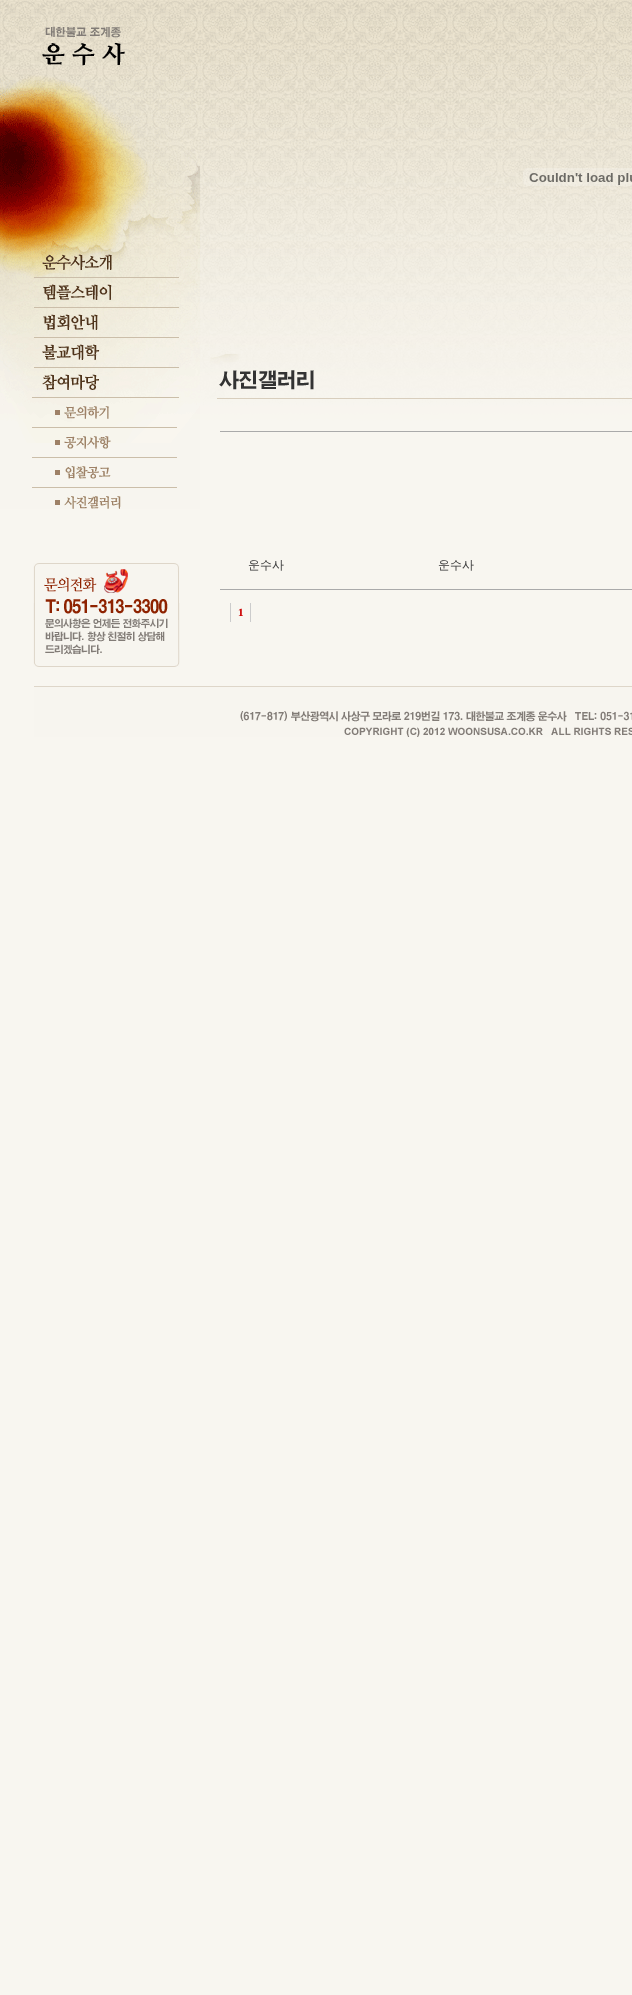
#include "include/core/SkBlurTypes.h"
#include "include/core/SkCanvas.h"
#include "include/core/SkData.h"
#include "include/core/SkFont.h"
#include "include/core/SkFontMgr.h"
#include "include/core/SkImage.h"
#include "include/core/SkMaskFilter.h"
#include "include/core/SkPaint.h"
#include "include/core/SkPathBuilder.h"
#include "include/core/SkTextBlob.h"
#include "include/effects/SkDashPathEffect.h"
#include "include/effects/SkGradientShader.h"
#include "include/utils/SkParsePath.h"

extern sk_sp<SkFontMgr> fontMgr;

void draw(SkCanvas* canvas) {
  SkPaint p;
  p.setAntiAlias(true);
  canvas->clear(SK_ColorWHITE);
  canvas->drawImageRect(SkImages::DeferredFromEncodedData(SkData::MakeFromFileName("images/1.png")), SkRect::MakeLTRB(0, 0, 632, 1995), SkSamplingOptions());
  canvas->drawImageRect(SkImages::DeferredFromEncodedData(SkData::MakeFromFileName("images/2.png")), SkRect::MakeLTRB(0, 26, 125, 80), SkSamplingOptions());
  canvas->drawImageRect(SkImages::DeferredFromEncodedData(SkData::MakeFromFileName("images/3.png")), SkRect::MakeLTRB(0, 80, 200, 509), SkSamplingOptions());
  canvas->drawImageRect(SkImages::DeferredFromEncodedData(SkData::MakeFromFileName("images/4.png")), SkRect::MakeLTRB(33, 563, 180, 667), SkSamplingOptions());
  canvas->drawImageRect(SkImages::DeferredFromEncodedData(SkData::MakeFromFileName("images/5.png")), SkRect::MakeLTRB(523, 168, 632, 186), SkSamplingOptions());
  canvas->drawImageRect(SkImages::DeferredFromEncodedData(SkData::MakeFromFileName("images/6.png")), SkRect::MakeLTRB(210, 354, 632, 399), SkSamplingOptions());
  p.setColor(SkColorSetRGB(170, 170, 170));
  canvas->drawRect(SkRect::MakeLTRB(220, 431, 632, 432), p);
  canvas->drawRect(SkRect::MakeLTRB(220, 589, 632, 590), p);
  p.setColor(SkColorSetRGB(204, 204, 204));
  canvas->drawRect(SkRect::MakeLTRB(230, 603, 231, 622), p);
  canvas->drawRect(SkRect::MakeLTRB(250, 603, 251, 622), p);
  canvas->drawImageRect(SkImages::DeferredFromEncodedData(SkData::MakeFromFileName("images/7.png")), SkRect::MakeLTRB(34, 686, 632, 737), SkSamplingOptions());
  SkFont font1(fontMgr->matchFamilyStyle("WenQuanYi Zen Hei", SkFontStyle(500, SkFontStyle::kNormal_Width, SkFontStyle::kUpright_Slant)), 12);
  font1.setSubpixel(true);
  p.setColor(SkColorSetRGB(70, 70, 70));
  canvas->drawString("운수사", 248, 569, font1, p);
  canvas->drawString("운수사", 438, 569, font1, p);
  SkFont font2(fontMgr->matchFamilyStyle("Liberation Serif", SkFontStyle::Bold()), 11);
  font2.setSubpixel(true);
  p.setColor(SkColorSetRGB(204, 0, 0));
  canvas->drawString("1", 238, 616, font2, p);
}
